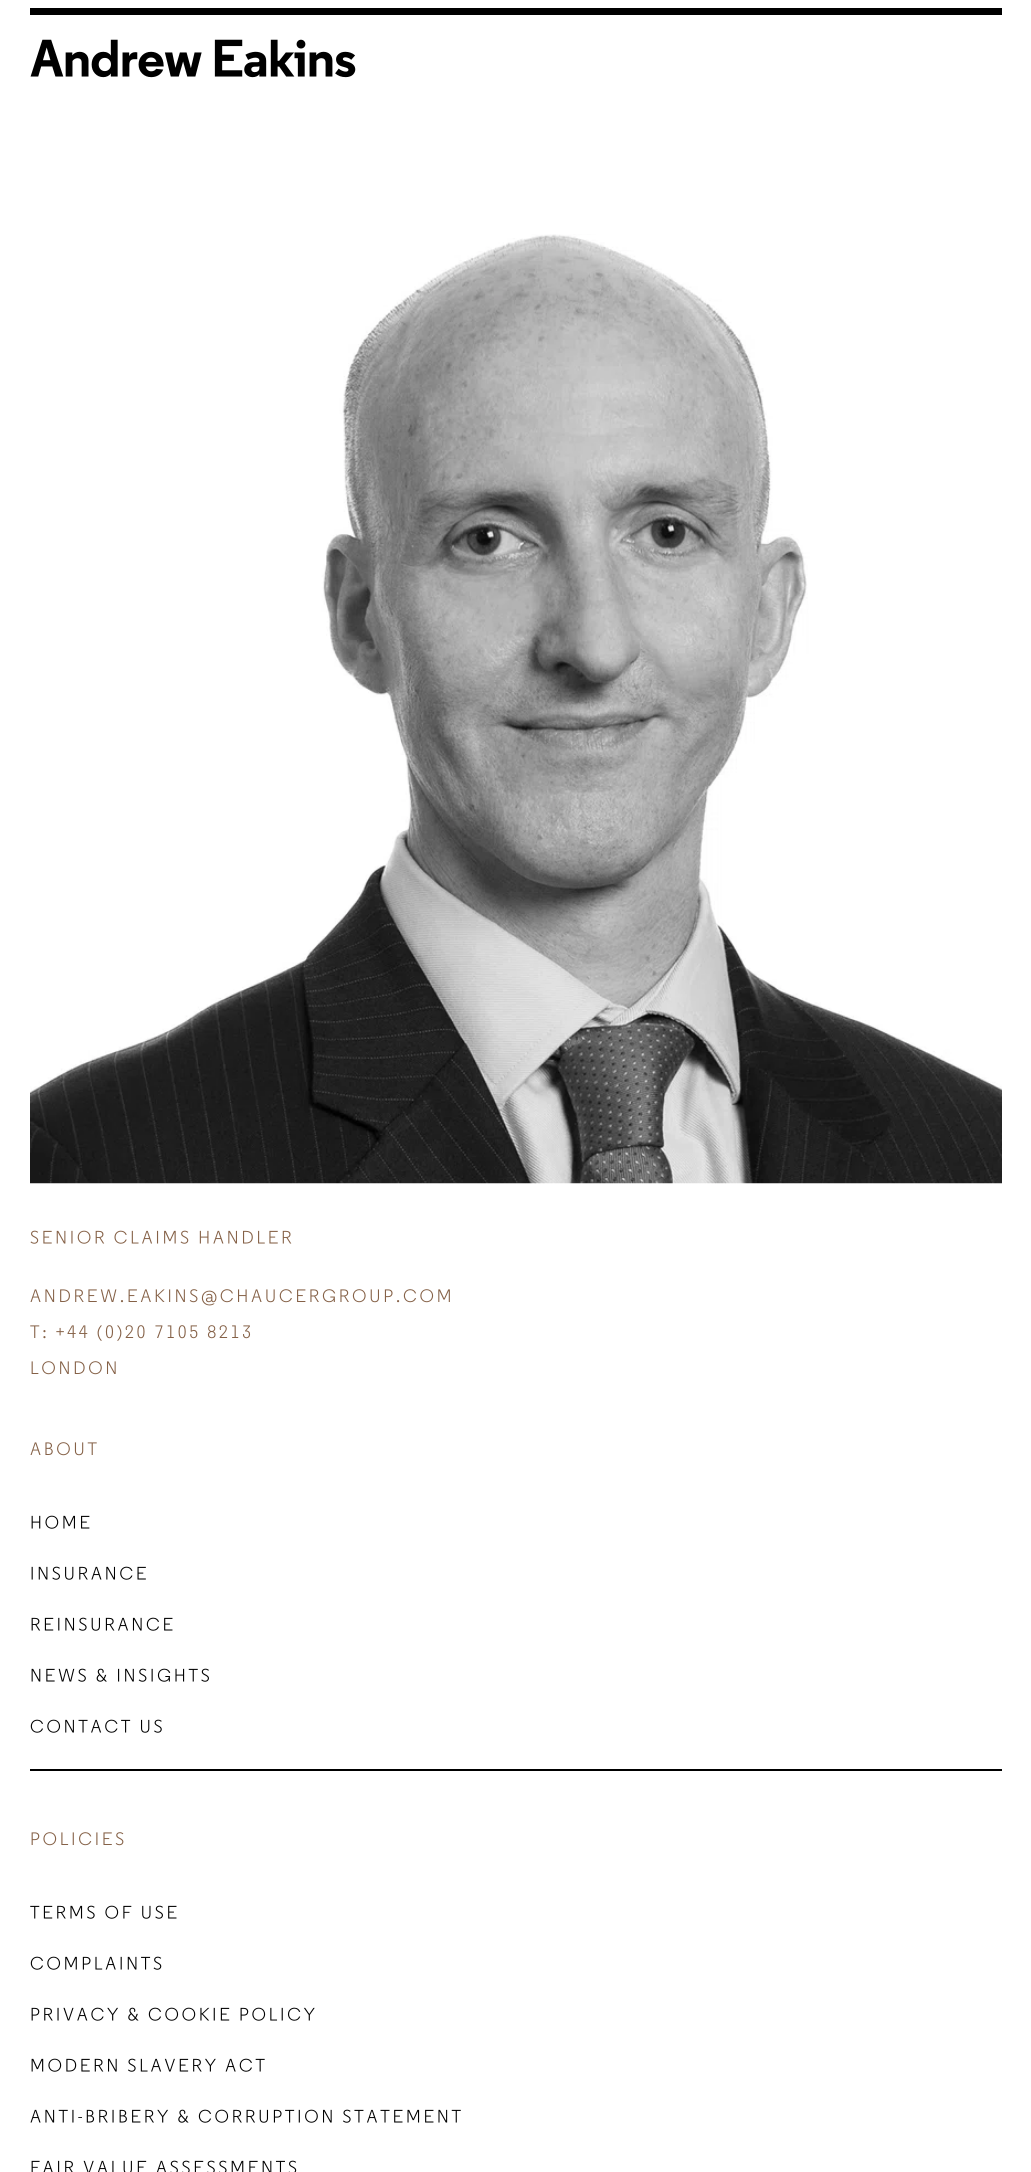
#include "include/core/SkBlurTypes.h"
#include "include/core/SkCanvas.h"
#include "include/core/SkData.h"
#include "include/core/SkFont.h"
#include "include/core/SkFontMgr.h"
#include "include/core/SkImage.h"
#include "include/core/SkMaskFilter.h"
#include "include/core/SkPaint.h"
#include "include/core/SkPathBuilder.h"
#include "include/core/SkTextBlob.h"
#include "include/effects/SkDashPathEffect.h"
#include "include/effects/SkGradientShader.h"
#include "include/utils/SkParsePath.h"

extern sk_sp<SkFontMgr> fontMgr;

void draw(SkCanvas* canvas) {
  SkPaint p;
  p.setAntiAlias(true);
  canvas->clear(SK_ColorWHITE);
  p.setColor(SK_ColorBLACK);
  canvas->drawRect(SkRect::MakeLTRB(30, 8, 1002, 15), p);
  canvas->drawImageRect(SkImages::DeferredFromEncodedData(SkData::MakeFromFileName("images/1.png")), SkRect::MakeLTRB(30, 39, 356, 78), SkSamplingOptions());
  canvas->drawImageRect(SkImages::DeferredFromEncodedData(SkData::MakeFromFileName("images/2.png")), SkRect::MakeLTRB(30, 234, 1002, 1184), SkSamplingOptions());
  canvas->drawImageRect(SkImages::DeferredFromEncodedData(SkData::MakeFromFileName("images/3.png")), SkRect::MakeLTRB(30, 1230, 292, 1244), SkSamplingOptions());
  canvas->drawImageRect(SkImages::DeferredFromEncodedData(SkData::MakeFromFileName("images/4.png")), SkRect::MakeLTRB(30, 1289, 450, 1306), SkSamplingOptions());
  canvas->drawImageRect(SkImages::DeferredFromEncodedData(SkData::MakeFromFileName("images/5.png")), SkRect::MakeLTRB(30, 1325, 251, 1341), SkSamplingOptions());
  canvas->drawImageRect(SkImages::DeferredFromEncodedData(SkData::MakeFromFileName("images/6.png")), SkRect::MakeLTRB(31, 1361, 116, 1375), SkSamplingOptions());
  canvas->drawImageRect(SkImages::DeferredFromEncodedData(SkData::MakeFromFileName("images/7.png")), SkRect::MakeLTRB(30, 1442, 97, 1456), SkSamplingOptions());
  canvas->drawImageRect(SkImages::DeferredFromEncodedData(SkData::MakeFromFileName("images/8.png")), SkRect::MakeLTRB(31, 1515, 90, 1529), SkSamplingOptions());
  canvas->drawImageRect(SkImages::DeferredFromEncodedData(SkData::MakeFromFileName("images/9.png")), SkRect::MakeLTRB(31, 1566, 146, 1580), SkSamplingOptions());
  canvas->drawImageRect(SkImages::DeferredFromEncodedData(SkData::MakeFromFileName("images/10.png")), SkRect::MakeLTRB(31, 1617, 173, 1631), SkSamplingOptions());
  canvas->drawImageRect(SkImages::DeferredFromEncodedData(SkData::MakeFromFileName("images/11.png")), SkRect::MakeLTRB(31, 1668, 209, 1682), SkSamplingOptions());
  canvas->drawImageRect(SkImages::DeferredFromEncodedData(SkData::MakeFromFileName("images/12.png")), SkRect::MakeLTRB(30, 1719, 162, 1733), SkSamplingOptions());
  canvas->drawRect(SkRect::MakeLTRB(30, 1769, 1002, 1771), p);
  canvas->drawImageRect(SkImages::DeferredFromEncodedData(SkData::MakeFromFileName("images/13.png")), SkRect::MakeLTRB(31, 1832, 124, 1846), SkSamplingOptions());
  canvas->drawImageRect(SkImages::DeferredFromEncodedData(SkData::MakeFromFileName("images/14.png")), SkRect::MakeLTRB(30, 1905, 177, 1919), SkSamplingOptions());
  canvas->drawImageRect(SkImages::DeferredFromEncodedData(SkData::MakeFromFileName("images/15.png")), SkRect::MakeLTRB(30, 1956, 162, 1970), SkSamplingOptions());
  canvas->drawImageRect(SkImages::DeferredFromEncodedData(SkData::MakeFromFileName("images/16.png")), SkRect::MakeLTRB(31, 2007, 315, 2021), SkSamplingOptions());
  canvas->drawImageRect(SkImages::DeferredFromEncodedData(SkData::MakeFromFileName("images/17.png")), SkRect::MakeLTRB(31, 2058, 265, 2072), SkSamplingOptions());
  canvas->drawImageRect(SkImages::DeferredFromEncodedData(SkData::MakeFromFileName("images/18.png")), SkRect::MakeLTRB(30, 2109, 461, 2123), SkSamplingOptions());
  canvas->drawImageRect(SkImages::DeferredFromEncodedData(SkData::MakeFromFileName("images/19.png")), SkRect::MakeLTRB(31, 2160, 297, 2172), SkSamplingOptions());
}
